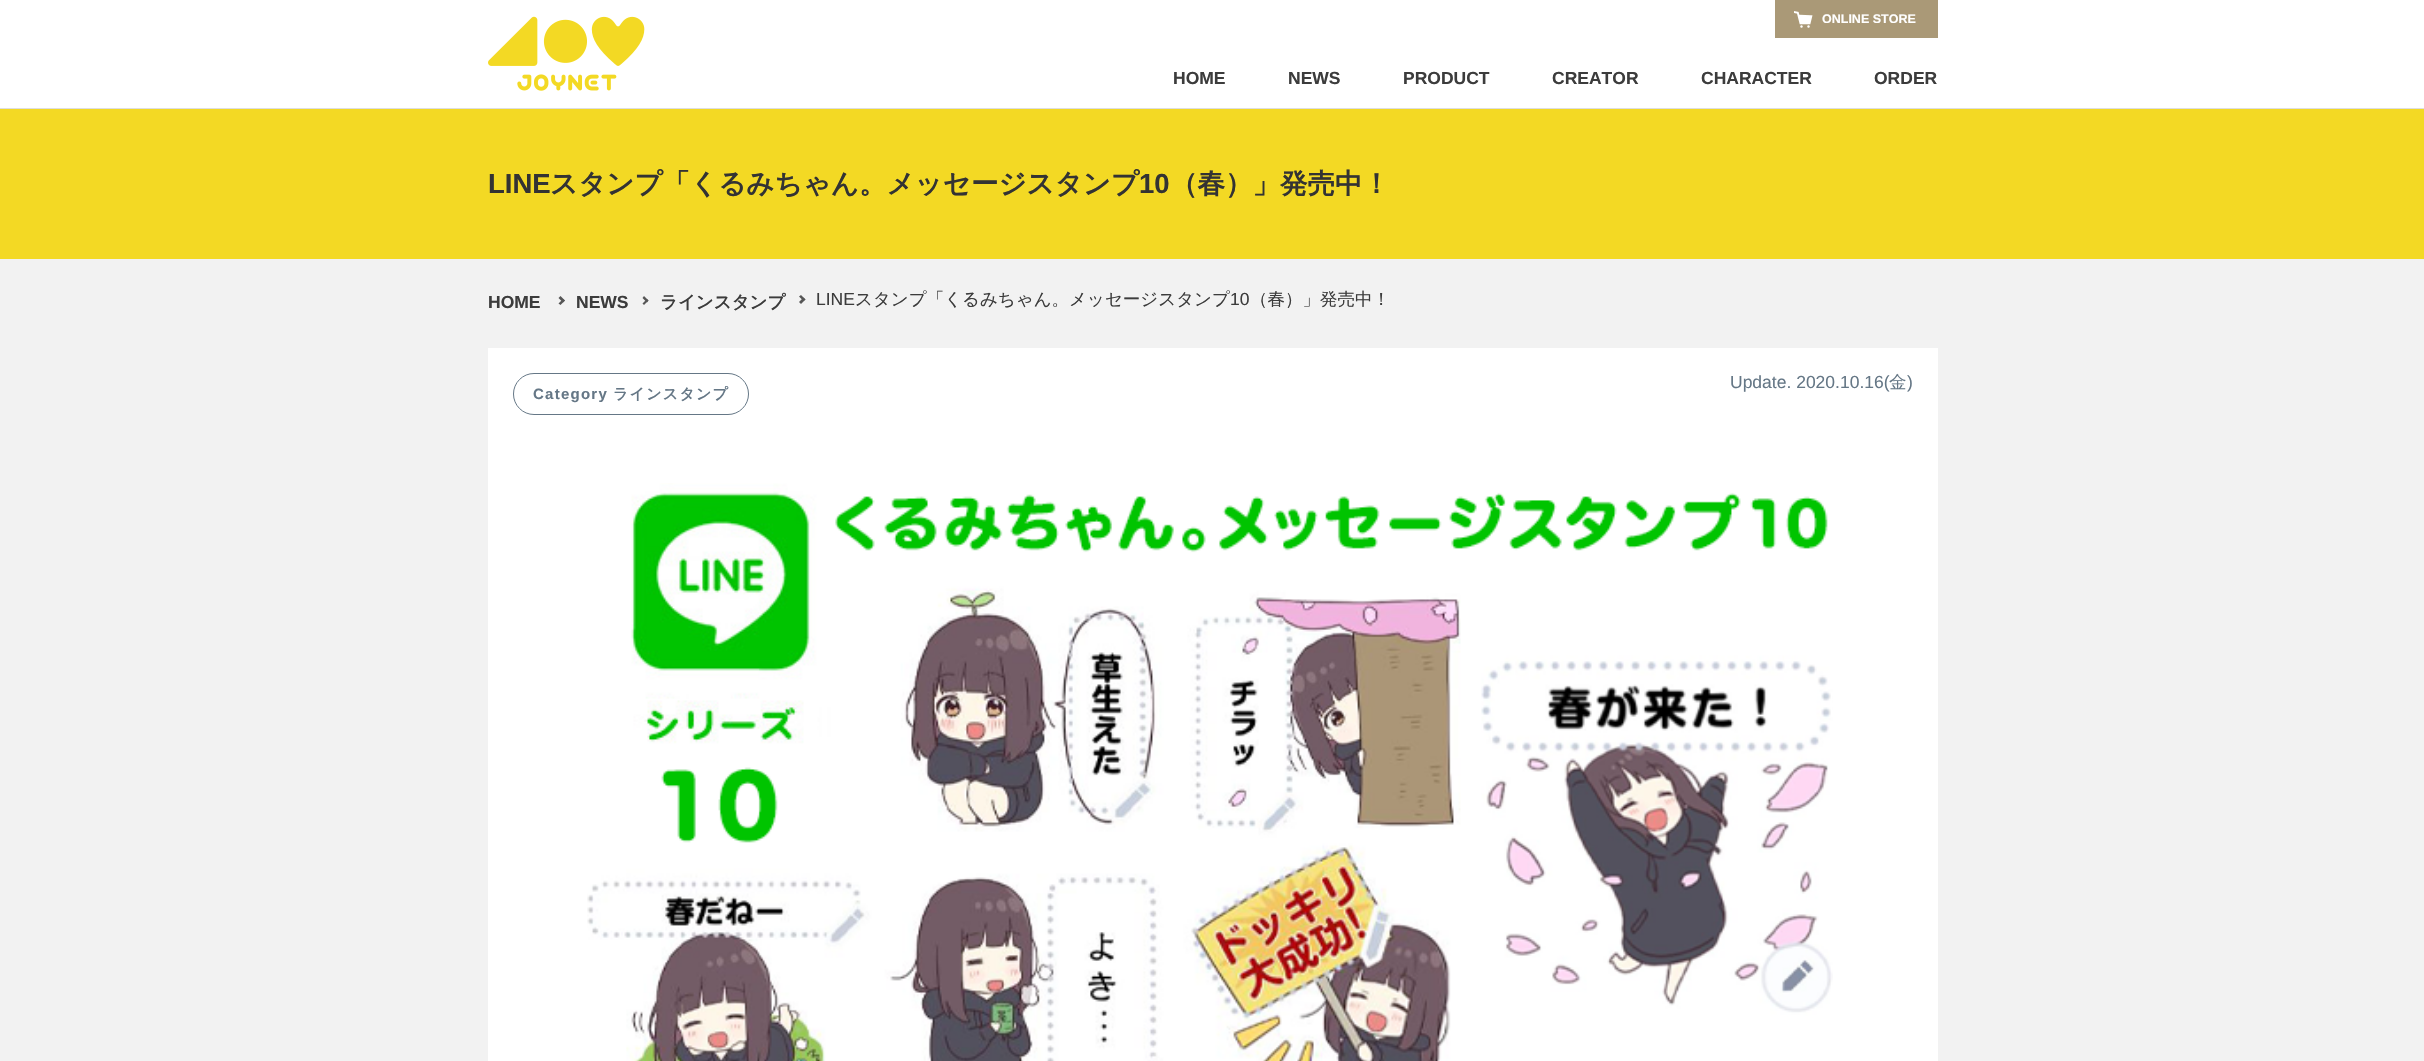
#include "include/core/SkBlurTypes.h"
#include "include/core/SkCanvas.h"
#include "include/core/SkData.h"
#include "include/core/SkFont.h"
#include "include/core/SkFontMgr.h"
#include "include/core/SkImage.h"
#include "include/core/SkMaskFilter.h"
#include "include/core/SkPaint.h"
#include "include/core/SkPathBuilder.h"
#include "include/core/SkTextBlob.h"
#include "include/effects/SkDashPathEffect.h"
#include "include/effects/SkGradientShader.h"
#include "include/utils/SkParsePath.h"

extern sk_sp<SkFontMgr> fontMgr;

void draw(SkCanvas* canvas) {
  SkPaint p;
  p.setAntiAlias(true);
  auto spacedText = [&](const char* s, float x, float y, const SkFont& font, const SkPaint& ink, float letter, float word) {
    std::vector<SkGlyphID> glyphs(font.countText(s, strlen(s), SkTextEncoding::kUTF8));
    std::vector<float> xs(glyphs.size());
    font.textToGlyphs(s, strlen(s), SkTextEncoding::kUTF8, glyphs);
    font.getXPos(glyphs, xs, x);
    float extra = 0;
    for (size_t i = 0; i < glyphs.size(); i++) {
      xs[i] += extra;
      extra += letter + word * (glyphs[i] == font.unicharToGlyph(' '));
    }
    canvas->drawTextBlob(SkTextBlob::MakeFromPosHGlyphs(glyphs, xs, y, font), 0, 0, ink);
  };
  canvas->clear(SK_ColorWHITE);
  canvas->drawImageRect(SkImages::DeferredFromEncodedData(SkData::MakeFromFileName("images/1.png")), SkRect::MakeLTRB(488, 16, 645, 91), SkSamplingOptions());
  p.setColor(SkColorSetRGB(170, 153, 119));
  canvas->drawRect(SkRect::MakeLTRB(1775, 0, 1938, 38), p);
  canvas->drawImageRect(SkImages::DeferredFromEncodedData(SkData::MakeFromFileName("images/2.png")), SkRect::MakeLTRB(1794, 11, 1813, 28), SkSamplingOptions());
  p.setColor(SkColorSetRGB(242, 242, 242));
  canvas->drawRect(SkRect::MakeLTRB(0, 259, 2424, 1061), p);
  p.setColor(SkColorSetRGB(243, 217, 36));
  canvas->drawRect(SkRect::MakeLTRB(0, 109, 2424, 259), p);
  p.setColor(SkColorSetRGB(222, 222, 222));
  canvas->drawRect(SkRect::MakeLTRB(0, 108, 2424, 109), p);
  p.setColor(SkColorSetRGB(86, 86, 86));
  canvas->drawPath(SkPathBuilder().moveTo(560.5f, 296).lineTo(565, 300.5f).lineTo(563, 302.5f).lineTo(558.5f, 298).close().detach(), p);
  canvas->drawPath(SkPathBuilder().moveTo(563, 299).lineTo(565, 300.5f).lineTo(560.5f, 305).lineTo(558.5f, 303.5f).close().detach(), p);
  canvas->drawPath(SkPathBuilder().moveTo(644, 296).lineTo(648.5f, 300.5f).lineTo(647, 302.5f).lineTo(642.5f, 298).close().detach(), p);
  canvas->drawPath(SkPathBuilder().moveTo(647, 299).lineTo(648.5f, 300.5f).lineTo(644, 305).lineTo(642.5f, 303.5f).close().detach(), p);
  canvas->drawPath(SkPathBuilder().moveTo(801, 295).lineTo(805.5f, 299.5f).lineTo(803.5f, 301).lineTo(799, 296.5f).close().detach(), p);
  canvas->drawPath(SkPathBuilder().moveTo(803.5f, 297.5f).lineTo(805.5f, 299.5f).lineTo(801, 304).lineTo(799, 302).close().detach(), p);
  p.setColor(SK_ColorWHITE);
  canvas->drawRect(SkRect::MakeLTRB(488, 348, 1938, 1061), p);
  p.setStyle(SkPaint::kStroke_Style);
  p.setStrokeWidth(1);
  p.setColor(SkColorSetRGB(101, 119, 134));
  canvas->drawRoundRect(SkRect::MakeLTRB(513.5f, 373.5f, 748.5f, 414.5f), 20.5f, 20.5f, p);
  canvas->drawImageRect(SkImages::DeferredFromEncodedData(SkData::MakeFromFileName("images/3.png")), SkRect::MakeLTRB(587, 483, 1833, 1061), SkSamplingOptions());
  SkFont font1(fontMgr->matchFamilyStyle("Liberation Sans", SkFontStyle::Bold()), 12.5f);
  font1.setSubpixel(true);
  p.setStyle(SkPaint::kFill_Style);
  p.setColor(SK_ColorWHITE);
  canvas->drawString("ONLINE STORE", 1822, 23, font1, p);
  SkFont font2(fontMgr->matchFamilyStyle("Liberation Sans", SkFontStyle::Bold()), 17.5f);
  font2.setSubpixel(true);
  p.setColor(SkColorSetRGB(60, 60, 60));
  canvas->drawString("HOME", 1173, 84, font2, p);
  canvas->drawString("NEWS", 1288, 84, font2, p);
  canvas->drawString("PRODUCT", 1403, 84, font2, p);
  canvas->drawString("CREATOR", 1552, 84, font2, p);
  canvas->drawString("CHARACTER", 1701, 84, font2, p);
  canvas->drawString("ORDER", 1874, 84, font2, p);
  SkFont font3(fontMgr->matchFamilyStyle("Liberation Sans", SkFontStyle::Bold()), 27.5f);
  font3.setSubpixel(true);
  p.setColor(SkColorSetRGB(51, 51, 51));
  canvas->drawString("LINE", 488, 193, font3, p);
  SkFont font4(fontMgr->matchFamilyStyle("WenQuanYi Zen Hei", SkFontStyle::Bold()), 27.5f);
  font4.setSubpixel(true);
  canvas->drawString("スタンプ「くるみちゃん。メッセージスタンプ", 550, 193, font4, p);
  canvas->drawString("10", 1139, 193, font3, p);
  canvas->drawString("（春）」発売中！", 1170, 193, font4, p);
  p.setColor(SkColorSetRGB(60, 60, 60));
  canvas->drawString("HOME", 488, 308, font2, p);
  canvas->drawString("NEWS", 576, 308, font2, p);
  SkFont font5(fontMgr->matchFamilyStyle("WenQuanYi Zen Hei", SkFontStyle::Bold()), 17.5f);
  font5.setSubpixel(true);
  canvas->drawString("ラインスタンプ", 660, 308, font5, p);
  SkFont font6(fontMgr->matchFamilyStyle("Liberation Sans", SkFontStyle::Normal()), 17.5f);
  font6.setSubpixel(true);
  canvas->drawString("LINE", 816, 305, font6, p);
  SkFont font7(fontMgr->matchFamilyStyle("WenQuanYi Zen Hei", SkFontStyle(500, SkFontStyle::kNormal_Width, SkFontStyle::kUpright_Slant)), 17.5f);
  font7.setSubpixel(true);
  canvas->drawString("スタンプ「くるみちゃん。メッセージスタンプ", 855, 305, font7, p);
  canvas->drawString("10", 1230, 305, font6, p);
  canvas->drawString("（春）」発売中！", 1250, 305, font7, p);
  p.setColor(SkColorSetRGB(101, 119, 134));
  canvas->drawString("Update. 2020.10.16(", 1730, 388, font6, p);
  canvas->drawString("金", 1889, 388, font7, p);
  canvas->drawString(")", 1907, 388, font6, p);
  SkFont font8(fontMgr->matchFamilyStyle("Liberation Sans", SkFontStyle::Bold()), 15);
  font8.setSubpixel(true);
  spacedText("Category", 533, 399, font8, p, 1.25f, 0);
  SkFont font9(fontMgr->matchFamilyStyle("WenQuanYi Zen Hei", SkFontStyle::Bold()), 15);
  font9.setSubpixel(true);
  spacedText("ラインスタンプ", 613, 399, font9, p, 1.25f, 0);
}
